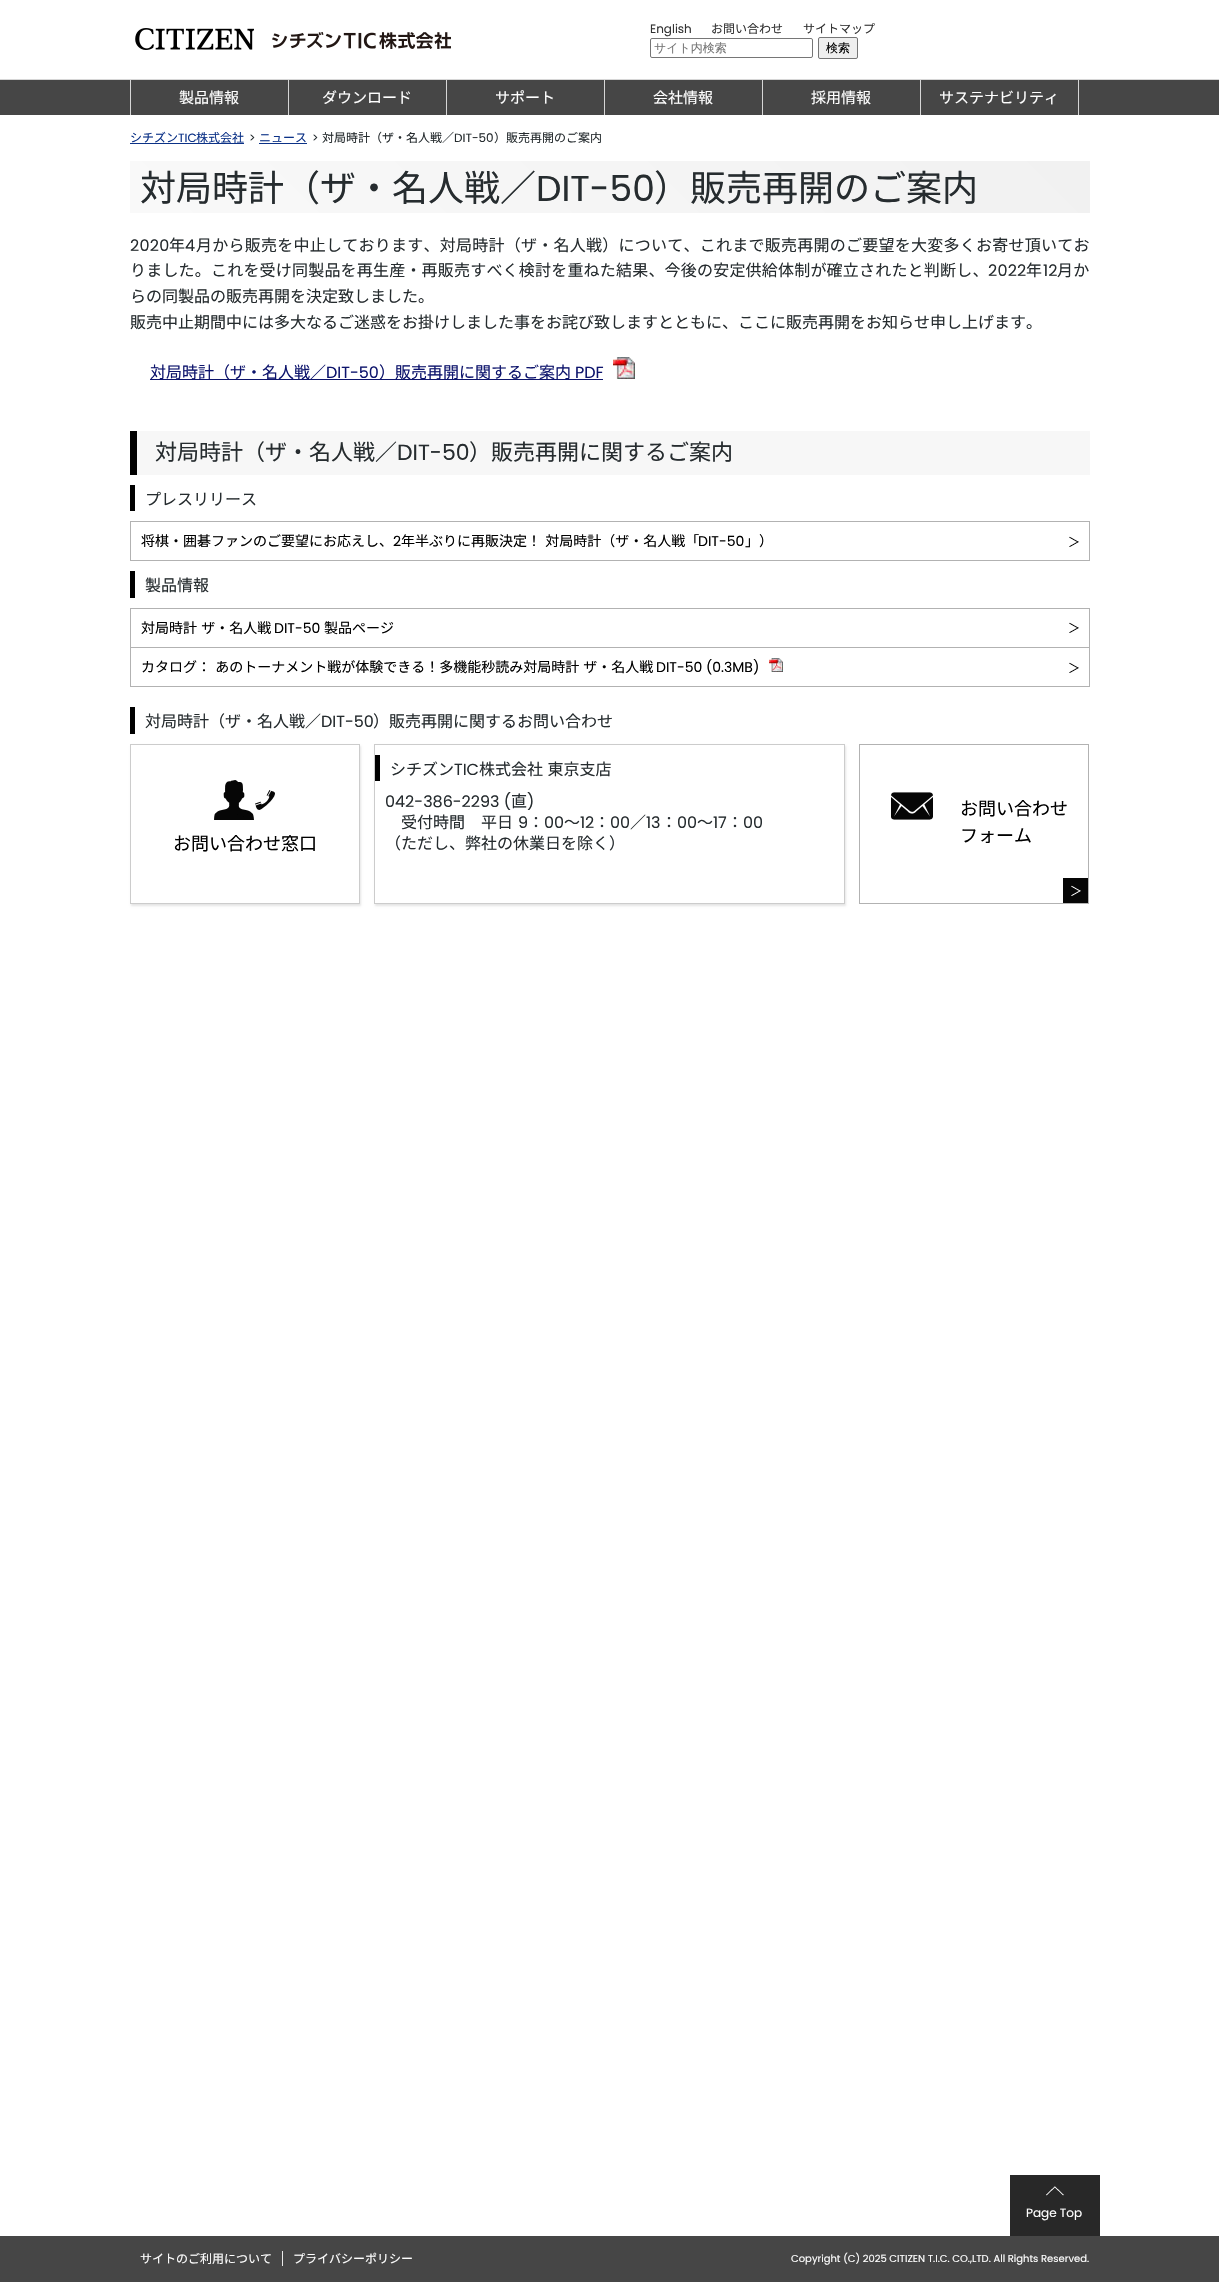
#include "include/core/SkBlurTypes.h"
#include "include/core/SkCanvas.h"
#include "include/core/SkData.h"
#include "include/core/SkFont.h"
#include "include/core/SkFontMgr.h"
#include "include/core/SkImage.h"
#include "include/core/SkMaskFilter.h"
#include "include/core/SkPaint.h"
#include "include/core/SkPathBuilder.h"
#include "include/core/SkTextBlob.h"
#include "include/effects/SkDashPathEffect.h"
#include "include/effects/SkGradientShader.h"
#include "include/utils/SkParsePath.h"

extern sk_sp<SkFontMgr> fontMgr;

void draw(SkCanvas* canvas) {
  SkPaint p;
  p.setAntiAlias(true);
  auto spacedText = [&](const char* s, float x, float y, const SkFont& font, const SkPaint& ink, float letter, float word) {
    std::vector<SkGlyphID> glyphs(font.countText(s, strlen(s), SkTextEncoding::kUTF8));
    std::vector<float> xs(glyphs.size());
    font.textToGlyphs(s, strlen(s), SkTextEncoding::kUTF8, glyphs);
    font.getXPos(glyphs, xs, x);
    float extra = 0;
    for (size_t i = 0; i < glyphs.size(); i++) {
      xs[i] += extra;
      extra += letter + word * (glyphs[i] == font.unicharToGlyph(' '));
    }
    canvas->drawTextBlob(SkTextBlob::MakeFromPosHGlyphs(glyphs, xs, y, font), 0, 0, ink);
  };
  canvas->clear(SK_ColorWHITE);
  p.setColor(SkColorSetRGB(214, 214, 214));
  canvas->drawRect(SkRect::MakeLTRB(0, 79, 1219, 80), p);
  canvas->drawImageRect(SkImages::DeferredFromEncodedData(SkData::MakeFromFileName("images/1.png")), SkRect::MakeLTRB(135, 28, 254, 50), SkSamplingOptions());
  canvas->drawImageRect(SkImages::DeferredFromEncodedData(SkData::MakeFromFileName("images/2.png")), SkRect::MakeLTRB(272, 32, 451, 49), SkSamplingOptions());
  p.setStyle(SkPaint::kStroke_Style);
  p.setStrokeWidth(1);
  p.setColor(SkColorSetRGB(118, 118, 118));
  canvas->drawRoundRect(SkRect::MakeLTRB(650.5f, 38.5f, 812.5f, 57.5f), 1.5f, 1.5f, p);
  p.setStyle(SkPaint::kFill_Style);
  p.setColor(SkColorSetRGB(239, 239, 239));
  canvas->drawRoundRect(SkRect::MakeLTRB(818.5f, 37.5f, 857.5f, 58.5f), 1.5f, 1.5f, p);
  p.setStyle(SkPaint::kStroke_Style);
  p.setColor(SkColorSetRGB(118, 118, 118));
  canvas->drawRoundRect(SkRect::MakeLTRB(818.5f, 37.5f, 857.5f, 58.5f), 1.5f, 1.5f, p);
  p.setStyle(SkPaint::kFill_Style);
  p.setColor(SkColorSetRGB(70, 70, 70));
  canvas->drawRect(SkRect::MakeLTRB(0, 80, 1219, 115), p);
  p.setColor(SkColorSetRGB(214, 214, 214));
  canvas->drawRect(SkRect::MakeLTRB(288, 80, 289, 115), p);
  canvas->drawRect(SkRect::MakeLTRB(130, 80, 131, 115), p);
  canvas->drawRect(SkRect::MakeLTRB(446, 80, 447, 115), p);
  canvas->drawRect(SkRect::MakeLTRB(604, 80, 605, 115), p);
  canvas->drawRect(SkRect::MakeLTRB(762, 80, 763, 115), p);
  canvas->drawRect(SkRect::MakeLTRB(920, 80, 921, 115), p);
  canvas->drawRect(SkRect::MakeLTRB(1078, 80, 1079, 115), p);
  p.setColor(SkColorSetRGB(12, 50, 135));
  canvas->drawRect(SkRect::MakeLTRB(130, 143, 244, 144), p);
  canvas->drawRect(SkRect::MakeLTRB(259, 143, 307, 144), p);
  {
    const SkColor colors[] = {SkColorSetRGB(249, 249, 249), SkColorSetRGB(241, 241, 241)};
    const float stops[] = {0, 1};
    const SkPoint ends[] = {{357, 440}, {863, -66}};
    p.setShader(SkGradientShader::MakeLinear(ends, colors, stops, 2, SkTileMode::kClamp));
    p.setAlpha(255);
  }
  canvas->drawRect(SkRect::MakeLTRB(130, 161, 1090, 213), p);
  canvas->drawImageRect(SkImages::DeferredFromEncodedData(SkData::MakeFromFileName("images/3.png")), SkRect::MakeLTRB(613, 357, 635, 379), SkSamplingOptions());
  p.setShader(nullptr);
  p.setColor(SkColorSetRGB(13, 20, 108));
  canvas->drawRect(SkRect::MakeLTRB(150, 379, 603, 380), p);
  p.setColor(SkColorSetRGB(247, 247, 247));
  canvas->drawRect(SkRect::MakeLTRB(137, 431, 1090, 475), p);
  p.setColor(SK_ColorBLACK);
  canvas->drawRect(SkRect::MakeLTRB(130, 431, 137, 475), p);
  canvas->drawRect(SkRect::MakeLTRB(130, 485, 135, 511), p);
  p.setStyle(SkPaint::kStroke_Style);
  p.setColor(SkColorSetRGB(178, 178, 178));
  canvas->drawRect(SkRect::MakeLTRB(130.5f, 521.5f, 1089.5f, 560.5f), p);
  canvas->drawImageRect(SkImages::DeferredFromEncodedData(SkData::MakeFromFileName("images/4.png")), SkRect::MakeLTRB(1069, 536, 1079, 547), SkSamplingOptions());
  p.setStyle(SkPaint::kFill_Style);
  p.setColor(SK_ColorBLACK);
  canvas->drawRect(SkRect::MakeLTRB(130, 571, 135, 598), p);
  p.setStyle(SkPaint::kStroke_Style);
  p.setColor(SkColorSetRGB(178, 178, 178));
  canvas->drawRect(SkRect::MakeLTRB(130.5f, 608.5f, 1089.5f, 686.5f), p);
  canvas->drawImageRect(SkImages::DeferredFromEncodedData(SkData::MakeFromFileName("images/4.png")), SkRect::MakeLTRB(1069, 622, 1079, 633), SkSamplingOptions());
  canvas->drawImageRect(SkImages::DeferredFromEncodedData(SkData::MakeFromFileName("images/4.png")), SkRect::MakeLTRB(1069, 662, 1079, 673), SkSamplingOptions());
  p.setStyle(SkPaint::kFill_Style);
  canvas->drawRect(SkRect::MakeLTRB(131, 647, 1089, 648), p);
  canvas->drawImageRect(SkImages::DeferredFromEncodedData(SkData::MakeFromFileName("images/5.png")), SkRect::MakeLTRB(769, 658, 783, 672), SkSamplingOptions());
  p.setColor(SK_ColorBLACK);
  canvas->drawRect(SkRect::MakeLTRB(130, 707, 135, 734), p);
  canvas->save();
  canvas->clipPath(SkPathBuilder(SkPathFillType::kEvenOdd).moveTo(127, 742).lineTo(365, 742).lineTo(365, 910).lineTo(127, 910).close().moveTo(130, 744).lineTo(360, 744).lineTo(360, 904).lineTo(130, 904).close().detach(), true);
  p.setColor(SkColorSetARGB(26, 0, 0, 0));
  p.setMaskFilter(SkMaskFilter::MakeBlur(kNormal_SkBlurStyle, 1));
  canvas->drawRect(SkRect::MakeLTRB(131, 746, 361, 906), p);
  p.setMaskFilter(nullptr);
  canvas->restore();
  p.setStyle(SkPaint::kStroke_Style);
  p.setColor(SkColorSetRGB(204, 204, 204));
  canvas->drawRect(SkRect::MakeLTRB(130.5f, 744.5f, 359.5f, 903.5f), p);
  canvas->drawImageRect(SkImages::DeferredFromEncodedData(SkData::MakeFromFileName("images/6.png")), SkRect::MakeLTRB(214, 780, 275, 820), SkSamplingOptions());
  canvas->save();
  canvas->clipPath(SkPathBuilder(SkPathFillType::kEvenOdd).moveTo(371, 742).lineTo(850, 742).lineTo(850, 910).lineTo(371, 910).close().moveTo(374, 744).lineTo(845, 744).lineTo(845, 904).lineTo(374, 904).close().detach(), true);
  p.setStyle(SkPaint::kFill_Style);
  p.setColor(SkColorSetARGB(26, 0, 0, 0));
  p.setMaskFilter(SkMaskFilter::MakeBlur(kNormal_SkBlurStyle, 1));
  canvas->drawRect(SkRect::MakeLTRB(375, 746, 846, 906), p);
  p.setMaskFilter(nullptr);
  canvas->restore();
  p.setStyle(SkPaint::kStroke_Style);
  p.setColor(SkColorSetRGB(204, 204, 204));
  canvas->drawRect(SkRect::MakeLTRB(374.5f, 744.5f, 844.5f, 903.5f), p);
  p.setStyle(SkPaint::kFill_Style);
  p.setColor(SK_ColorBLACK);
  canvas->drawRect(SkRect::MakeLTRB(375, 755, 380, 781), p);
  canvas->drawImageRect(SkImages::DeferredFromEncodedData(SkData::MakeFromFileName("images/7.png")), SkRect::MakeLTRB(1063, 878, 1088, 903), SkSamplingOptions());
  p.setStyle(SkPaint::kStroke_Style);
  p.setColor(SkColorSetRGB(178, 178, 178));
  canvas->drawRect(SkRect::MakeLTRB(859.5f, 744.5f, 1088.5f, 903.5f), p);
  canvas->drawImageRect(SkImages::DeferredFromEncodedData(SkData::MakeFromFileName("images/8.png")), SkRect::MakeLTRB(891, 792, 933, 820), SkSamplingOptions());
  p.setStyle(SkPaint::kFill_Style);
  p.setColor(SkColorSetRGB(40, 40, 40));
  canvas->drawRect(SkRect::MakeLTRB(1010, 2175, 1100, 2236), p);
  canvas->drawImageRect(SkImages::DeferredFromEncodedData(SkData::MakeFromFileName("images/9.png")), SkRect::MakeLTRB(1046, 2186, 1064, 2196), SkSamplingOptions());
  p.setColor(SkColorSetRGB(70, 70, 70));
  canvas->drawRect(SkRect::MakeLTRB(0, 2236, 1219, 2282), p);
  p.setColor(SkColorSetRGB(234, 234, 234));
  canvas->drawRect(SkRect::MakeLTRB(282, 2251, 283, 2266), p);
  SkFont font1(fontMgr->matchFamilyStyle("Poppins", SkFontStyle::Normal()), 12);
  font1.setSubpixel(true);
  p.setColor(SkColorSetRGB(51, 51, 51));
  canvas->drawString("English", 650, 33, font1, p);
  SkFont font2(fontMgr->matchFamilyStyle("Noto Sans JP", SkFontStyle::Normal()), 12);
  font2.setSubpixel(true);
  canvas->drawString("お問い合わせ", 711, 33, font2, p);
  canvas->drawString("サイトマップ", 803, 33, font2, p);
  SkFont font3(fontMgr->matchFamilyStyle("WenQuanYi Zen Hei", SkFontStyle(500, SkFontStyle::kNormal_Width, SkFontStyle::kUpright_Slant)), 12);
  font3.setSubpixel(true);
  p.setColor(SkColorSetRGB(117, 117, 117));
  canvas->drawString("サイト内検索", 654, 52, font3, p);
  p.setColor(SK_ColorBLACK);
  canvas->drawString("検索", 826, 52, font3, p);
  SkFont font4(fontMgr->matchFamilyStyle("Noto Sans JP", SkFontStyle::Normal()), 15);
  font4.setSubpixel(true);
  p.setColor(SK_ColorWHITE);
  canvas->drawString("製品情報", 179, 103, font4, p);
  canvas->drawString("ダウンロード", 322, 103, font4, p);
  canvas->drawString("サポート", 495, 103, font4, p);
  canvas->drawString("会社情報", 653, 103, font4, p);
  canvas->drawString("採用情報", 811, 103, font4, p);
  canvas->drawString("サステナビリティ", 939, 103, font4, p);
  p.setColor(SkColorSetRGB(12, 50, 135));
  canvas->drawString("シチズン", 130, 142, font2, p);
  canvas->drawString("TIC", 178, 142, font1, p);
  canvas->drawString("株式会社", 196, 142, font2, p);
  p.setColor(SkColorSetRGB(38, 44, 47));
  canvas->drawString(">", 249, 142, font1, p);
  p.setColor(SkColorSetRGB(12, 50, 135));
  canvas->drawString("ニュース", 259, 142, font2, p);
  p.setColor(SkColorSetRGB(38, 44, 47));
  canvas->drawString(">", 312, 142, font1, p);
  canvas->drawString("対局時計（ザ・名人戦／", 322, 142, font2, p);
  canvas->drawString("DIT-50", 454, 142, font1, p);
  canvas->drawString("）販売再開のご案内", 494, 142, font2, p);
  SkFont font5(fontMgr->matchFamilyStyle("Noto Sans JP", SkFontStyle::Normal()), 36);
  font5.setSubpixel(true);
  canvas->drawString("対局時計（ザ・名人戦／", 140, 201, font5, p);
  SkFont font6(fontMgr->matchFamilyStyle("Poppins", SkFontStyle::Normal()), 36);
  font6.setSubpixel(true);
  canvas->drawString("DIT-50", 536, 201, font6, p);
  canvas->drawString("）販売再開のご案内", 654, 201, font5, p);
  SkFont font7(fontMgr->matchFamilyStyle("Poppins", SkFontStyle::Normal()), 16);
  font7.setSubpixel(true);
  spacedText("2020", 130, 251, font7, p, 0.25f, 0);
  SkFont font8(fontMgr->matchFamilyStyle("Noto Sans JP", SkFontStyle::Normal()), 16);
  font8.setSubpixel(true);
  spacedText("年", 169, 251, font8, p, 0.25f, 0);
  spacedText("4", 185, 251, font7, p, 0.25f, 0);
  spacedText("月から販売を中止しております、対局時計（ザ・名人戦）について、これまで販売再開のご要望を大変多くお寄せ頂いてお", 196, 251, font8, p, 0.25f, 0);
  spacedText("りました。これを受け同製品を再生産・再販売すべく検討を重ねた結果、今後の安定供給体制が確立されたと判断し、", 130, 276, font8, p, 0.2f, 0);
  spacedText("2022", 988, 276, font7, p, 0.2f, 0);
  spacedText("年", 1026, 276, font8, p, 0.2f, 0);
  spacedText("12", 1043, 276, font7, p, 0.2f, 0);
  spacedText("月か", 1057, 276, font8, p, 0.2f, 0);
  canvas->drawString("らの同製品の販売再開を決定致しました。", 130, 302, font8, p);
  canvas->drawString("販売中止期間中には多大なるご迷惑をお掛けしました事をお詫び致しますとともに、ここに販売再開をお知らせ申し上げます。", 130, 328, font8, p);
  p.setColor(SkColorSetRGB(13, 20, 108));
  canvas->drawString("対局時計（ザ・名人戦／", 150, 378, font8, p);
  canvas->drawString("DIT-50", 326, 378, font7, p);
  canvas->drawString("）販売再開に関するご案内", 379, 378, font8, p);
  canvas->drawString("PDF", 575, 378, font7, p);
  SkFont font9(fontMgr->matchFamilyStyle("Noto Sans JP", SkFontStyle::Normal()), 22);
  font9.setSubpixel(true);
  p.setColor(SkColorSetRGB(38, 44, 47));
  canvas->drawString("対局時計（ザ・名人戦／", 155, 460, font9, p);
  SkFont font10(fontMgr->matchFamilyStyle("Poppins", SkFontStyle::Normal()), 22);
  font10.setSubpixel(true);
  canvas->drawString("DIT-50", 397, 460, font10, p);
  canvas->drawString("）販売再開に関するご案内", 469, 460, font9, p);
  canvas->drawString("プレスリリース", 145, 505, font8, p);
  SkFont font11(fontMgr->matchFamilyStyle("Noto Sans JP", SkFontStyle::Normal()), 14);
  font11.setSubpixel(true);
  p.setColor(SK_ColorBLACK);
  canvas->drawString("将棋・囲碁ファンのご要望にお応えし、", 141, 546, font11, p);
  SkFont font12(fontMgr->matchFamilyStyle("Poppins", SkFontStyle::Normal()), 14);
  font12.setSubpixel(true);
  canvas->drawString("2", 393, 546, font12, p);
  spacedText("年半ぶりに再販決定！ 対局時計（ザ・名人戦「", 401, 546, font11, p, 0, 1);
  canvas->drawString("DIT-50", 698, 546, font12, p);
  canvas->drawString("」）", 745, 546, font11, p);
  p.setColor(SkColorSetRGB(38, 44, 47));
  canvas->drawString("製品情報", 145, 591, font8, p);
  p.setColor(SK_ColorBLACK);
  spacedText("対局時計 ザ・名人戦", 141, 633, font11, p, 0, 1);
  canvas->drawString("DIT-50", 274, 633, font12, p);
  canvas->drawString("製品ページ", 324, 633, font11, p);
  spacedText("カタログ： あのトーナメント戦が体験できる！多機能秒読み対局時計 ザ・名人戦", 141, 672, font11, p, 0, 1);
  canvas->drawString("DIT-50 (0.3MB)", 656, 672, font12, p);
  p.setColor(SkColorSetRGB(38, 44, 47));
  canvas->drawString("対局時計（ザ・名人戦／", 145, 727, font8, p);
  canvas->drawString("DIT-50", 321, 727, font7, p);
  canvas->drawString("）販売再開に関するお問い合わせ", 373, 727, font8, p);
  SkFont font13(fontMgr->matchFamilyStyle("Noto Sans JP", SkFontStyle::Normal()), 18);
  font13.setSubpixel(true);
  p.setColor(SK_ColorBLACK);
  canvas->drawString("お問い合わせ窓口", 173, 850, font13, p);
  p.setColor(SkColorSetRGB(38, 44, 47));
  canvas->drawString("シチズン", 390, 775, font8, p);
  canvas->drawString("TIC", 454, 775, font7, p);
  spacedText("株式会社 東京支店", 479, 775, font8, p, 0, 1);
  canvas->drawString("042-386-2293 (", 385, 807, font7, p);
  canvas->drawString("直", 511, 807, font8, p);
  canvas->drawString(")", 527, 807, font7, p);
  canvas->drawString("受付時間　平日", 401, 828, font8, p);
  canvas->drawString("9", 518, 828, font7, p);
  canvas->drawString("：", 528, 828, font8, p);
  canvas->drawString("00", 544, 828, font7, p);
  canvas->drawString("～", 564, 828, font8, p);
  canvas->drawString("12", 580, 828, font7, p);
  canvas->drawString("：", 594, 828, font8, p);
  canvas->drawString("00", 610, 828, font7, p);
  canvas->drawString("／", 630, 828, font8, p);
  canvas->drawString("13", 646, 828, font7, p);
  canvas->drawString("：", 661, 828, font8, p);
  canvas->drawString("00", 677, 828, font7, p);
  canvas->drawString("～", 697, 828, font8, p);
  canvas->drawString("17", 713, 828, font7, p);
  canvas->drawString("：", 727, 828, font8, p);
  canvas->drawString("00", 743, 828, font7, p);
  canvas->drawString("（ただし、弊社の休業日を除く）", 385, 849, font8, p);
  p.setColor(SK_ColorBLACK);
  canvas->drawString("お問い合わせ", 960, 815, font13, p);
  canvas->drawString("フォーム", 960, 842, font13, p);
  p.setColor(SK_ColorWHITE);
  canvas->drawString("Page Top", 1026, 2217, font1, p);
  canvas->drawString("サイトのご利用について", 140, 2263, font2, p);
  canvas->drawString("プライバシーポリシー", 293, 2263, font2, p);
  SkFont font14(fontMgr->matchFamilyStyle("Poppins", SkFontStyle::Normal()), 10);
  font14.setSubpixel(true);
  canvas->drawString("Copyright (C) 2025 CITIZEN T.I.C. CO.,LTD. All Rights Reserved.", 791, 2262, font14, p);
}
